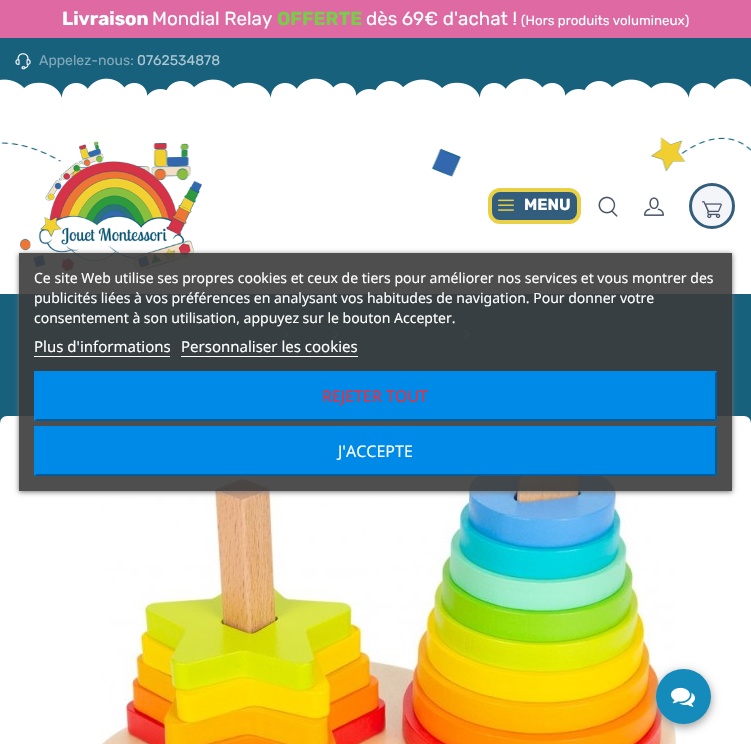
#include "include/core/SkBlurTypes.h"
#include "include/core/SkCanvas.h"
#include "include/core/SkData.h"
#include "include/core/SkFont.h"
#include "include/core/SkFontMgr.h"
#include "include/core/SkImage.h"
#include "include/core/SkMaskFilter.h"
#include "include/core/SkPaint.h"
#include "include/core/SkPathBuilder.h"
#include "include/core/SkTextBlob.h"
#include "include/effects/SkDashPathEffect.h"
#include "include/effects/SkGradientShader.h"
#include "include/utils/SkParsePath.h"

extern sk_sp<SkFontMgr> fontMgr;

void draw(SkCanvas* canvas) {
  SkPaint p;
  p.setAntiAlias(true);
  canvas->clear(SK_ColorWHITE);
  p.setColor(SkColorSetRGB(223, 105, 163));
  canvas->drawRect(SkRect::MakeLTRB(0, 0, 751, 38), p);
  p.setColor(SkColorSetRGB(24, 97, 125));
  canvas->drawRect(SkRect::MakeLTRB(0, 38, 751, 98), p);
  canvas->drawImageRect(SkImages::DeferredFromEncodedData(SkData::MakeFromFileName("images/1.png")), SkRect::MakeLTRB(0, 78, 751, 98), SkSamplingOptions());
  canvas->drawImageRect(SkImages::DeferredFromEncodedData(SkData::MakeFromFileName("images/2.png")), SkRect::MakeLTRB(15, 53, 31, 70), SkSamplingOptions());
  canvas->drawImageRect(SkImages::DeferredFromEncodedData(SkData::MakeFromFileName("images/3.png")), SkRect::MakeLTRB(1, 137, 751, 181), SkSamplingOptions());
  canvas->drawImageRect(SkImages::DeferredFromEncodedData(SkData::MakeFromFileName("images/4.png")), SkRect::MakeLTRB(20, 141, 202, 272), SkSamplingOptions());
  p.setColor(SkColorSetRGB(50, 93, 125));
  canvas->drawRoundRect(SkRect::MakeLTRB(490, 190, 579, 222), 10, 10, p);
  p.setStyle(SkPaint::kStroke_Style);
  p.setStrokeWidth(4);
  p.setColor(SkColorSetRGB(232, 209, 71));
  canvas->drawRoundRect(SkRect::MakeLTRB(490, 190, 579, 222), 10, 10, p);
  canvas->drawImageRect(SkImages::DeferredFromEncodedData(SkData::MakeFromFileName("images/5.png")), SkRect::MakeLTRB(498, 199, 514, 211), SkSamplingOptions());
  canvas->drawImageRect(SkImages::DeferredFromEncodedData(SkData::MakeFromFileName("images/6.png")), SkRect::MakeLTRB(598, 196, 618, 217), SkSamplingOptions());
  canvas->drawImageRect(SkImages::DeferredFromEncodedData(SkData::MakeFromFileName("images/7.png")), SkRect::MakeLTRB(644, 197, 664, 216), SkSamplingOptions());
  p.setStyle(SkPaint::kFill_Style);
  p.setColor(SkColorSetRGB(243, 245, 249));
  canvas->drawCircle(712, 206, 21.5f, p);
  p.setStyle(SkPaint::kStroke_Style);
  p.setStrokeWidth(3);
  p.setColor(SkColorSetRGB(50, 93, 125));
  canvas->drawCircle(712, 206, 21.5f, p);
  canvas->drawImageRect(SkImages::DeferredFromEncodedData(SkData::MakeFromFileName("images/8.png")), SkRect::MakeLTRB(702, 201, 722, 219), SkSamplingOptions());
  p.setStyle(SkPaint::kFill_Style);
  p.setColor(SkColorSetRGB(24, 97, 125));
  canvas->drawRect(SkRect::MakeLTRB(0, 294, 751, 423), p);
  canvas->drawImageRect(SkImages::DeferredFromEncodedData(SkData::MakeFromFileName("images/9.png")), SkRect::MakeLTRB(283, 329, 289, 339), SkSamplingOptions());
  canvas->drawImageRect(SkImages::DeferredFromEncodedData(SkData::MakeFromFileName("images/9.png")), SkRect::MakeLTRB(333, 329, 339, 339), SkSamplingOptions());
  canvas->drawImageRect(SkImages::DeferredFromEncodedData(SkData::MakeFromFileName("images/9.png")), SkRect::MakeLTRB(464, 329, 470, 339), SkSamplingOptions());
  p.setColor(SK_ColorWHITE);
  canvas->drawRoundRect(SkRect::MakeLTRB(0, 416, 751, 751), 7, 7, p);
  canvas->drawImageRect(SkImages::DeferredFromEncodedData(SkData::MakeFromFileName("images/10.png")), SkRect::MakeLTRB(98, 476, 676, 744), SkSamplingOptions());
  canvas->save();
  canvas->clipPath(SkPathBuilder(SkPathFillType::kEvenOdd).moveTo(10, 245).lineTo(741, 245).lineTo(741, 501).lineTo(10, 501).close().moveTo(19, 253).lineTo(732, 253).lineTo(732, 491).lineTo(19, 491).close().detach(), true);
  p.setColor(SkColorSetRGB(112, 112, 112));
  p.setMaskFilter(SkMaskFilter::MakeBlur(kNormal_SkBlurStyle, 2.5f));
  canvas->drawRect(SkRect::MakeLTRB(19, 254, 732, 492), p);
  p.setMaskFilter(nullptr);
  canvas->restore();
  p.setColor(SkColorSetARGB(230, 59, 59, 59));
  canvas->drawRect(SkRect::MakeLTRB(19, 253, 732, 491), p);
  p.setColor(SK_ColorWHITE);
  canvas->drawRect(SkRect::MakeLTRB(34, 356, 170, 357), p);
  canvas->drawRect(SkRect::MakeLTRB(181, 356, 358, 357), p);
  p.setColor(SkColorSetRGB(0, 138, 232));
  canvas->drawRect(SkRect::MakeLTRB(34, 371, 717, 421), p);
  p.setColor(SkColorSetRGB(0, 92, 155));
  canvas->drawPath(SkPathBuilder().moveTo(717, 371).lineTo(717, 421).lineTo(715, 419).lineTo(715, 373).close().detach(), p);
  canvas->drawPath(SkPathBuilder().moveTo(717, 421).lineTo(34, 421).lineTo(36, 419).lineTo(715, 419).close().detach(), p);
  p.setColor(SkColorSetRGB(0, 138, 232));
  canvas->drawPath(SkPathBuilder().moveTo(34, 421).lineTo(34, 371).lineTo(36, 373).lineTo(36, 419).close().detach(), p);
  canvas->drawRect(SkRect::MakeLTRB(34, 426, 717, 476), p);
  p.setColor(SkColorSetRGB(0, 92, 155));
  canvas->drawPath(SkPathBuilder().moveTo(717, 426).lineTo(717, 476).lineTo(715, 474).lineTo(715, 428).close().detach(), p);
  canvas->drawPath(SkPathBuilder().moveTo(717, 476).lineTo(34, 476).lineTo(36, 474).lineTo(715, 474).close().detach(), p);
  p.setColor(SkColorSetRGB(0, 138, 232));
  canvas->drawPath(SkPathBuilder().moveTo(34, 476).lineTo(34, 426).lineTo(36, 428).lineTo(36, 474).close().detach(), p);
  p.setColor(SkColorSetRGB(153, 153, 153));
  p.setMaskFilter(SkMaskFilter::MakeBlur(kNormal_SkBlurStyle, 5));
  canvas->drawRoundRect(SkRect::MakeLTRB(656, 672, 711, 727), 27.5f, 27.5f, p);
  p.setMaskFilter(nullptr);
  p.setColor(SkColorSetRGB(21, 139, 187));
  canvas->drawCircle(683.5f, 696.5f, 27.5f, p);
  canvas->drawImageRect(SkImages::DeferredFromEncodedData(SkData::MakeFromFileName("images/11.png")), SkRect::MakeLTRB(671, 687, 695, 707), SkSamplingOptions());
  SkFont font1(fontMgr->matchFamilyStyle("Rubik", SkFontStyle::Bold()), 18.75f);
  font1.setSubpixel(true);
  p.setColor(SkColorSetRGB(244, 255, 255));
  canvas->drawString("Livraison", 62, 25, font1, p);
  SkFont font2(fontMgr->matchFamilyStyle("Rubik", SkFontStyle(300, SkFontStyle::kNormal_Width, SkFontStyle::kUpright_Slant)), 18.75f);
  font2.setSubpixel(true);
  canvas->drawString("Mondial Relay", 152, 25, font2, p);
  p.setColor(SkColorSetRGB(123, 202, 76));
  canvas->drawString("OFFERTE", 277, 25, font1, p);
  p.setColor(SkColorSetRGB(244, 255, 255));
  canvas->drawString("dès 69€ d'achat !", 366, 25, font2, p);
  SkFont font3(fontMgr->matchFamilyStyle("Rubik", SkFontStyle(300, SkFontStyle::kNormal_Width, SkFontStyle::kUpright_Slant)), 13.3f);
  font3.setSubpixel(true);
  canvas->drawString("(Hors produits volumineux)", 521, 25, font3, p);
  SkFont font4(fontMgr->matchFamilyStyle("Rubik", SkFontStyle(300, SkFontStyle::kNormal_Width, SkFontStyle::kUpright_Slant)), 14);
  font4.setSubpixel(true);
  p.setColor(SkColorSetRGB(128, 168, 184));
  canvas->drawString("Appelez-nous:", 39, 65, font4, p);
  p.setColor(SkColorSetRGB(174, 200, 210));
  canvas->drawString("0762534878", 137, 65, font4, p);
  SkFont font5(fontMgr->matchFamilyStyle("Rubik", SkFontStyle::Bold()), 16);
  font5.setSubpixel(true);
  p.setColor(SkColorSetRGB(254, 255, 255));
  canvas->drawString("MENU", 524, 210, font5, p);
  SkFont font6(fontMgr->matchFamilyStyle("Noto Sans", SkFontStyle::Normal()), 14);
  font6.setSubpixel(true);
  canvas->drawString("Ce site Web utilise ses propres cookies et ceux de tiers pour améliorer nos services et vous montrer des", 34, 283, font6, p);
  canvas->drawString("publicités liées à vos préférences en analysant vos habitudes de navigation. Pour donner votre", 34, 303, font6, p);
  canvas->drawString("consentement à son utilisation, appuyez sur le bouton Accepter.", 34, 323, font6, p);
  SkFont font7(fontMgr->matchFamilyStyle("Noto Sans", SkFontStyle::Normal()), 15);
  font7.setSubpixel(true);
  canvas->drawString("Plus d'informations", 34, 352, font7, p);
  canvas->drawString("Personnaliser les cookies", 181, 352, font7, p);
  SkFont font8(fontMgr->matchFamilyStyle("Noto Sans", SkFontStyle::Normal()), 16);
  font8.setSubpixel(true);
  p.setColor(SkColorSetRGB(255, 37, 49));
  canvas->drawString("REJETER TOUT", 322, 402, font8, p);
  p.setColor(SkColorSetRGB(254, 255, 255));
  canvas->drawString("J'ACCEPTE", 338, 457, font8, p);
}
